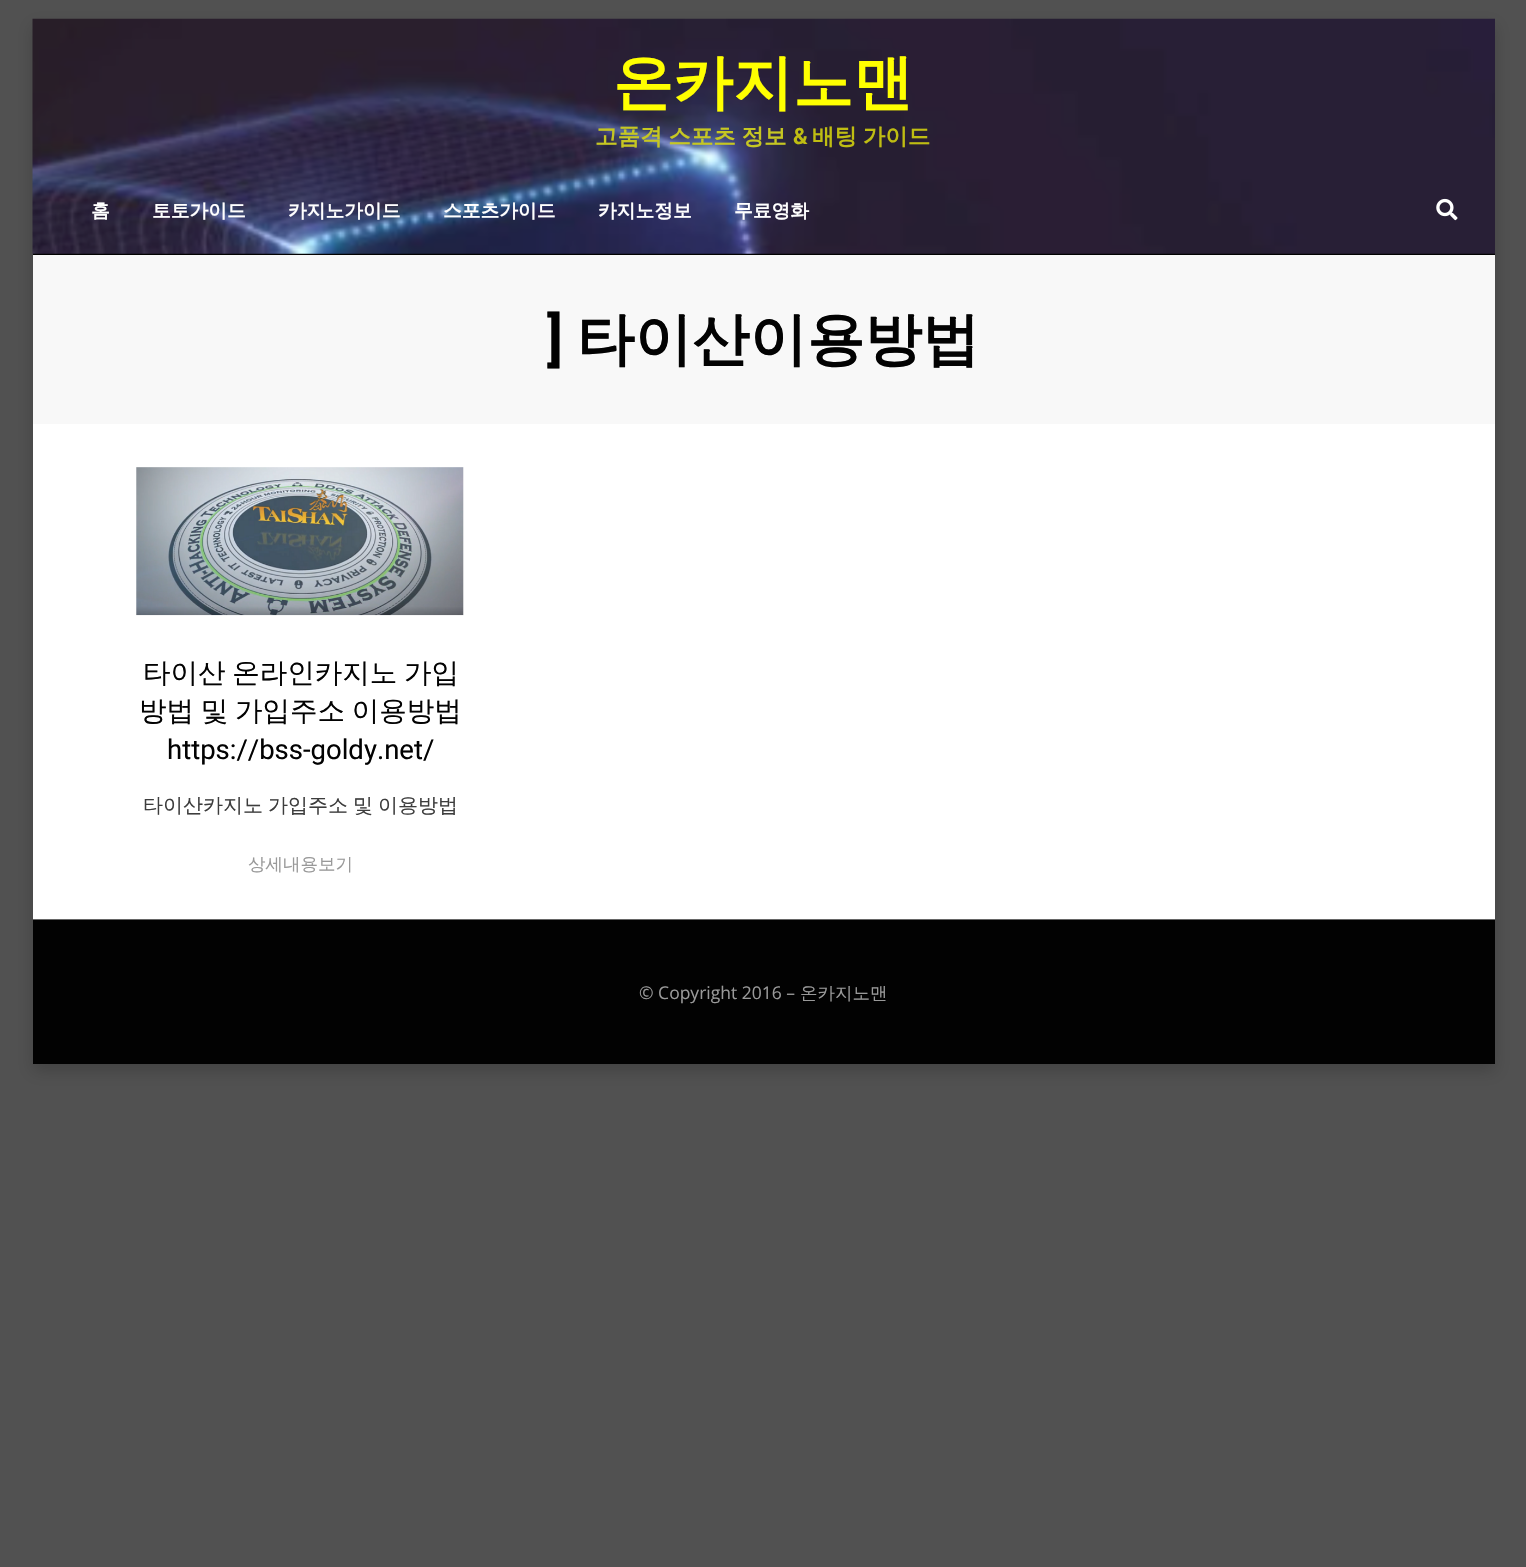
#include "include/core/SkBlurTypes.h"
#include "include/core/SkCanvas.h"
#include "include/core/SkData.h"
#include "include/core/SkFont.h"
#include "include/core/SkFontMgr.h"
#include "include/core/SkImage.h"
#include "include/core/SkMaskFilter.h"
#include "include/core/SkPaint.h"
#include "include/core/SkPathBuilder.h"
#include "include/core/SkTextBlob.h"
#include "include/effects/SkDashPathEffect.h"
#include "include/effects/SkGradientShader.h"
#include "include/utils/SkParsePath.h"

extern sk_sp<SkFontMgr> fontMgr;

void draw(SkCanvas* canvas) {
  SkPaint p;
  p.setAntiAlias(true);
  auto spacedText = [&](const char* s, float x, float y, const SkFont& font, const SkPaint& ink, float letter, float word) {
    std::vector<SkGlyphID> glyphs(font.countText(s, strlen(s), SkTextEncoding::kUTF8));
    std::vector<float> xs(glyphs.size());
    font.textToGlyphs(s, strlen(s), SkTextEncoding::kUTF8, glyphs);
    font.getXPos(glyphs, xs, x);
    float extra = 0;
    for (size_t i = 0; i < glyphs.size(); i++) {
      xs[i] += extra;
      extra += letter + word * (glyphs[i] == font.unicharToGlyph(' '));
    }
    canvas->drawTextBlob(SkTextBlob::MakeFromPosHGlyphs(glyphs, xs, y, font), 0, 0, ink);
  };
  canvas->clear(SkColorSetRGB(81, 81, 81));
  p.setColor(SkColorSetARGB(46, 0, 0, 0));
  p.setMaskFilter(SkMaskFilter::MakeBlur(kNormal_SkBlurStyle, 7.5f));
  canvas->drawRect(SkRect::MakeLTRB(33, 26, 1495, 1071), p);
  p.setMaskFilter(nullptr);
  p.setColor(SK_ColorWHITE);
  canvas->drawRect(SkRect::MakeLTRB(33, 424, 1495, 919), p);
  p.setColor(SkColorSetRGB(2, 2, 2));
  canvas->drawRect(SkRect::MakeLTRB(33, 253, 1495, 255), p);
  canvas->drawImageRect(SkImages::DeferredFromEncodedData(SkData::MakeFromFileName("images/1.png")), SkRect::MakeLTRB(32, 18, 1495, 254), SkSamplingOptions());
  canvas->drawImageRect(SkImages::DeferredFromEncodedData(SkData::MakeFromFileName("images/2.png")), SkRect::MakeLTRB(1436, 198, 1458, 221), SkSamplingOptions());
  p.setColor(SkColorSetRGB(248, 248, 248));
  canvas->drawRect(SkRect::MakeLTRB(33, 255, 1495, 424), p);
  canvas->drawImageRect(SkImages::DeferredFromEncodedData(SkData::MakeFromFileName("images/3.png")), SkRect::MakeLTRB(136, 467, 464, 616), SkSamplingOptions());
  p.setColor(SkColorSetRGB(2, 2, 2));
  canvas->drawRect(SkRect::MakeLTRB(33, 920, 1495, 1064), p);
  p.setColor(SkColorSetRGB(102, 102, 102));
  canvas->drawRect(SkRect::MakeLTRB(33, 919, 1495, 920), p);
  SkFont font1(fontMgr->matchFamilyStyle("WenQuanYi Zen Hei", SkFontStyle::Bold()), 60);
  font1.setSubpixel(true);
  p.setColor(SkColorSetRGB(255, 255, 0));
  canvas->drawString("온카지노맨", 613, 103, font1, p);
  SkFont font2(fontMgr->matchFamilyStyle("WenQuanYi Zen Hei", SkFontStyle::Bold()), 22.5f);
  font2.setSubpixel(true);
  p.setColor(SkColorSetRGB(198, 199, 34));
  spacedText("고품격 스포츠 정보", 595, 144, font2, p, 0, -1);
  SkFont font3(fontMgr->matchFamilyStyle("Roboto", SkFontStyle::Bold()), 22.5f);
  font3.setSubpixel(true);
  p.setColor(SkColorSetRGB(191, 189, 18));
  canvas->drawString("&", 793, 144, font3, p);
  spacedText("배팅 가이드", 812, 144, font2, p, 0, -1);
  SkFont font4(fontMgr->matchFamilyStyle("WenQuanYi Zen Hei", SkFontStyle::Bold()), 18.75f);
  font4.setSubpixel(true);
  p.setColor(SK_ColorWHITE);
  canvas->drawString("홈", 91, 217, font4, p);
  canvas->drawString("토토가이드", 152, 217, font4, p);
  canvas->drawString("카지노가이드", 288, 217, font4, p);
  canvas->drawString("스포츠가이드", 443, 217, font4, p);
  canvas->drawString("카지노정보", 598, 217, font4, p);
  canvas->drawString("무료영화", 734, 217, font4, p);
  SkFont font5(fontMgr->matchFamilyStyle("Roboto", SkFontStyle::Bold()), 57.5f);
  font5.setSubpixel(true);
  p.setColor(SkColorSetRGB(2, 2, 2));
  canvas->drawString("]", 547, 359, font5, p);
  SkFont font6(fontMgr->matchFamilyStyle("WenQuanYi Zen Hei", SkFontStyle::Bold()), 57.5f);
  font6.setSubpixel(true);
  canvas->drawString("타이산이용방법", 577, 359, font6, p);
  SkFont font7(fontMgr->matchFamilyStyle("WenQuanYi Zen Hei", SkFontStyle(500, SkFontStyle::kNormal_Width, SkFontStyle::kUpright_Slant)), 27.5f);
  font7.setSubpixel(true);
  spacedText("타이산 온라인카지노 가입", 143, 682, font7, p, 0, -1.5f);
  spacedText("방법 및 가입주소 이용방법", 139, 720, font7, p, 0, -1.5f);
  SkFont font8(fontMgr->matchFamilyStyle("Roboto", SkFontStyle::Normal()), 27.5f);
  font8.setSubpixel(true);
  canvas->drawString("https://bss-goldy.net/", 167, 759, font8, p);
  SkFont font9(fontMgr->matchFamilyStyle("WenQuanYi Zen Hei", SkFontStyle(500, SkFontStyle::kNormal_Width, SkFontStyle::kUpright_Slant)), 20);
  font9.setSubpixel(true);
  p.setColor(SkColorSetRGB(61, 61, 61));
  spacedText("타이산카지노 가입주소 및 이용방법", 143, 812, font9, p, 0, -1);
  SkFont font10(fontMgr->matchFamilyStyle("WenQuanYi Zen Hei", SkFontStyle(500, SkFontStyle::kNormal_Width, SkFontStyle::kUpright_Slant)), 17.5f);
  font10.setSubpixel(true);
  p.setColor(SkColorSetRGB(153, 153, 153));
  canvas->drawString("상세내용보기", 248, 870, font10, p);
  SkFont font11(fontMgr->matchFamilyStyle("Open Sans", SkFontStyle::Normal()), 17.5f);
  font11.setSubpixel(true);
  canvas->drawString("© Copyright 2016 –", 639, 999, font11, p);
  canvas->drawString("온카지노맨", 800, 999, font10, p);
}
